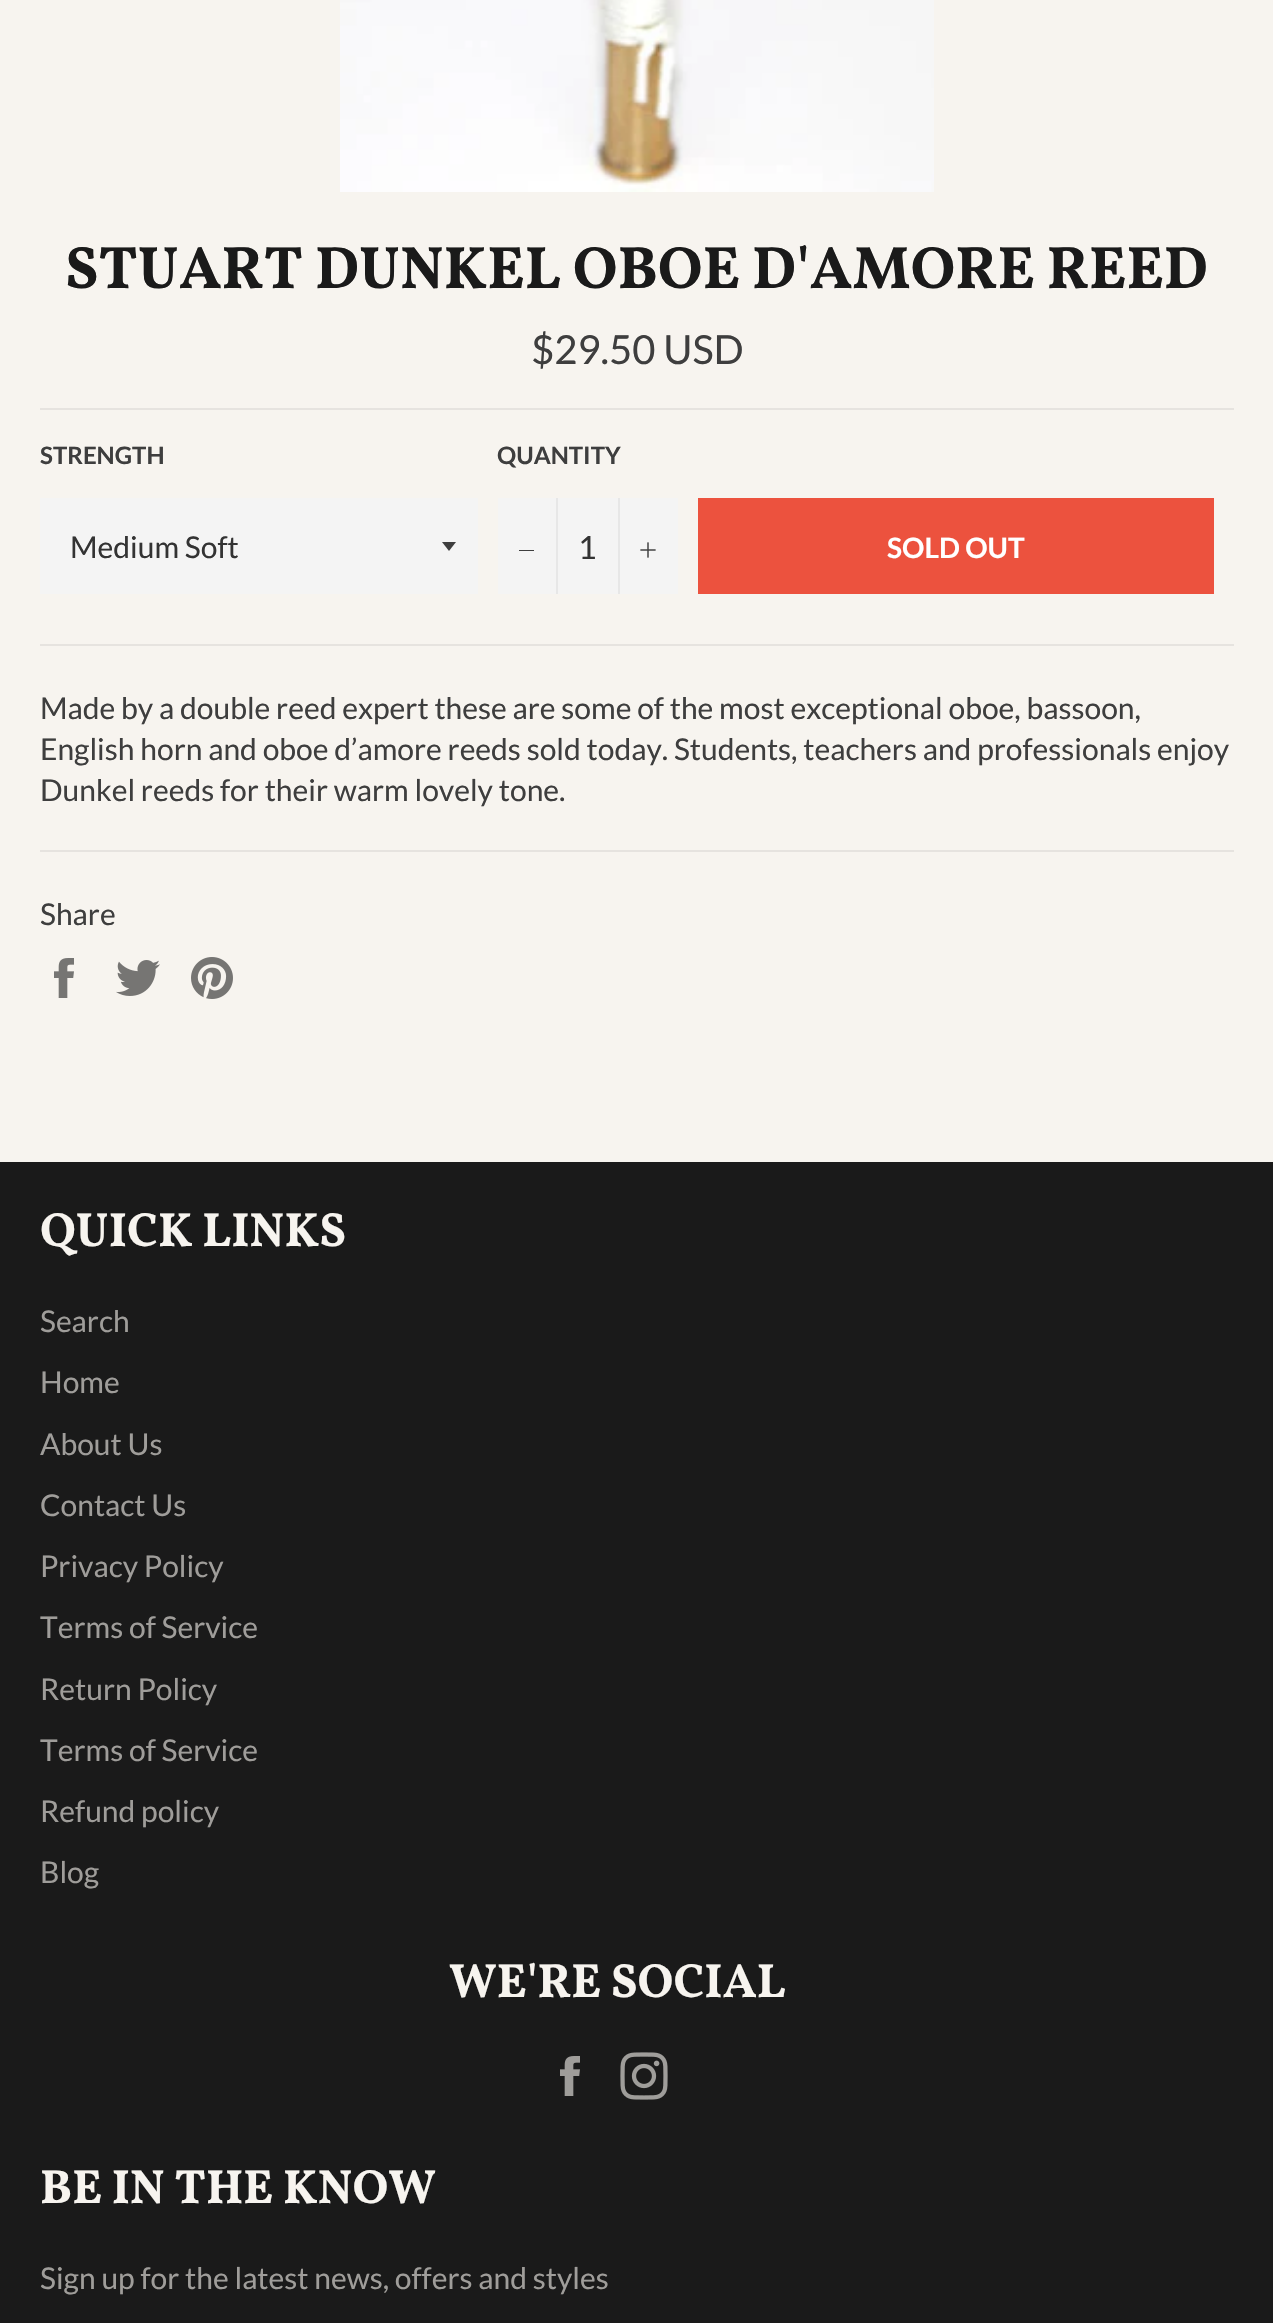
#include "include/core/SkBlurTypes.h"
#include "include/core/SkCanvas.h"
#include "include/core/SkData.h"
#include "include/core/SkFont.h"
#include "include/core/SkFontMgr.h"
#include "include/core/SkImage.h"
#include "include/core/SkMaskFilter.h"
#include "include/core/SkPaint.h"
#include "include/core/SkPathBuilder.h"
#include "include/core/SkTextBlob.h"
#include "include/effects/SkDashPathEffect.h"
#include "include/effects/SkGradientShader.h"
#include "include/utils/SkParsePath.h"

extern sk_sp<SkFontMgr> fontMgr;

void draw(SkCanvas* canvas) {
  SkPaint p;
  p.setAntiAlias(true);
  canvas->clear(SkColorSetRGB(247, 244, 239));
  canvas->drawImageRect(SkImages::DeferredFromEncodedData(SkData::MakeFromFileName("images/1.png")), SkRect::MakeLTRB(340, 0, 934, 192), SkSamplingOptions());
  p.setColor(SkColorSetRGB(230, 227, 223));
  canvas->drawRect(SkRect::MakeLTRB(40, 408, 1234, 410), p);
  p.setColor(SkColorSetRGB(244, 244, 244));
  canvas->drawRect(SkRect::MakeLTRB(40, 498, 478, 594), p);
  p.setColor(SkColorSetRGB(62, 62, 62));
  canvas->drawPath(SkPathBuilder().moveTo(442, 542).lineTo(449, 551).lineTo(456, 542).close().detach(), p);
  p.setColor(SkColorSetRGB(244, 244, 244));
  canvas->drawRect(SkRect::MakeLTRB(498, 498, 678, 594), p);
  p.setColor(SkColorSetRGB(231, 231, 231));
  canvas->drawRect(SkRect::MakeLTRB(556, 498, 558, 594), p);
  p.setColor(SkColorSetRGB(62, 62, 62));
  canvas->drawRect(SkRect::MakeLTRB(519, 550, 534, 551), p);
  p.setColor(SkColorSetRGB(231, 231, 231));
  canvas->drawRect(SkRect::MakeLTRB(618, 498, 620, 594), p);
  canvas->drawImageRect(SkImages::DeferredFromEncodedData(SkData::MakeFromFileName("images/2.png")), SkRect::MakeLTRB(640, 542, 656, 558), SkSamplingOptions());
  p.setColor(SkColorSetRGB(236, 82, 62));
  canvas->drawRect(SkRect::MakeLTRB(698, 498, 1214, 594), p);
  p.setColor(SkColorSetRGB(230, 227, 223));
  canvas->drawRect(SkRect::MakeLTRB(40, 644, 1234, 646), p);
  canvas->drawRect(SkRect::MakeLTRB(40, 850, 1234, 852), p);
  canvas->drawImageRect(SkImages::DeferredFromEncodedData(SkData::MakeFromFileName("images/3.png")), SkRect::MakeLTRB(54, 958, 74, 998), SkSamplingOptions());
  canvas->drawImageRect(SkImages::DeferredFromEncodedData(SkData::MakeFromFileName("images/4.png")), SkRect::MakeLTRB(116, 960, 160, 996), SkSamplingOptions());
  canvas->drawImageRect(SkImages::DeferredFromEncodedData(SkData::MakeFromFileName("images/5.png")), SkRect::MakeLTRB(191, 957, 233, 999), SkSamplingOptions());
  p.setColor(SkColorSetRGB(26, 26, 26));
  canvas->drawRect(SkRect::MakeLTRB(0, 1162, 1273, 2323), p);
  canvas->drawImageRect(SkImages::DeferredFromEncodedData(SkData::MakeFromFileName("images/6.png")), SkRect::MakeLTRB(560, 2056, 580, 2096), SkSamplingOptions());
  canvas->drawImageRect(SkImages::DeferredFromEncodedData(SkData::MakeFromFileName("images/7.png")), SkRect::MakeLTRB(620, 2052, 668, 2100), SkSamplingOptions());
  SkFont font1(fontMgr->matchFamilyStyle("Vollkorn", SkFontStyle::Bold()), 60);
  font1.setSubpixel(true);
  canvas->drawString("STUART DUNKEL OBOE D'AMORE REED", 65, 288, font1, p);
  SkFont font2(fontMgr->matchFamilyStyle("Lato", SkFontStyle::Normal()), 40);
  font2.setSubpixel(true);
  p.setColor(SkColorSetRGB(62, 62, 62));
  canvas->drawString("$29.50 USD", 531, 364, font2, p);
  SkFont font3(fontMgr->matchFamilyStyle("Lato", SkFontStyle::Bold()), 24);
  font3.setSubpixel(true);
  canvas->drawString("STRENGTH", 40, 464, font3, p);
  SkFont font4(fontMgr->matchFamilyStyle("Lato", SkFontStyle::Normal()), 30);
  font4.setSubpixel(true);
  p.setColor(SkColorSetRGB(51, 51, 51));
  canvas->drawString("Medium Soft", 70, 558, font4, p);
  p.setColor(SkColorSetRGB(62, 62, 62));
  canvas->drawString("QUANTITY", 497, 464, font3, p);
  SkFont font5(fontMgr->matchFamilyStyle("Lato", SkFontStyle::Normal()), 32);
  font5.setSubpixel(true);
  p.setColor(SkColorSetRGB(51, 51, 51));
  canvas->drawString("1", 578, 559, font5, p);
  SkFont font6(fontMgr->matchFamilyStyle("Lato", SkFontStyle::Bold()), 28);
  font6.setSubpixel(true);
  p.setColor(SK_ColorWHITE);
  canvas->drawString("SOLD OUT", 887, 558, font6, p);
  p.setColor(SkColorSetRGB(62, 62, 62));
  canvas->drawString("Made by a double reed expert these are some of the most exceptional oboe, bassoon,", 40, 719, font4, p);
  canvas->drawString("English horn and oboe d’amore reeds sold today. Students, teachers and professionals enjoy", 40, 760, font4, p);
  canvas->drawString("Dunkel reeds for their warm lovely tone.", 40, 801, font4, p);
  canvas->drawString("Share", 40, 925, font4, p);
  SkFont font7(fontMgr->matchFamilyStyle("Vollkorn", SkFontStyle::Bold()), 48);
  font7.setSubpixel(true);
  p.setColor(SkColorSetRGB(247, 244, 239));
  canvas->drawString("QUICK LINKS", 40, 1246, font7, p);
  p.setColor(SkColorSetRGB(159, 157, 154));
  canvas->drawString("Search", 40, 1332, font4, p);
  canvas->drawString("Home", 40, 1393, font4, p);
  canvas->drawString("About Us", 40, 1455, font4, p);
  canvas->drawString("Contact Us", 40, 1516, font4, p);
  canvas->drawString("Privacy Policy", 40, 1577, font4, p);
  canvas->drawString("Terms of Service", 40, 1638, font4, p);
  canvas->drawString("Return Policy", 40, 1700, font4, p);
  canvas->drawString("Terms of Service", 40, 1761, font4, p);
  canvas->drawString("Refund policy", 40, 1822, font4, p);
  canvas->drawString("Blog", 40, 1883, font4, p);
  p.setColor(SkColorSetRGB(247, 244, 239));
  canvas->drawString("WE'RE SOCIAL", 449, 1997, font7, p);
  canvas->drawString("BE IN THE KNOW", 40, 2203, font7, p);
  p.setColor(SkColorSetRGB(159, 157, 154));
  canvas->drawString("Sign up for the latest news, offers and styles", 40, 2289, font4, p);
}
